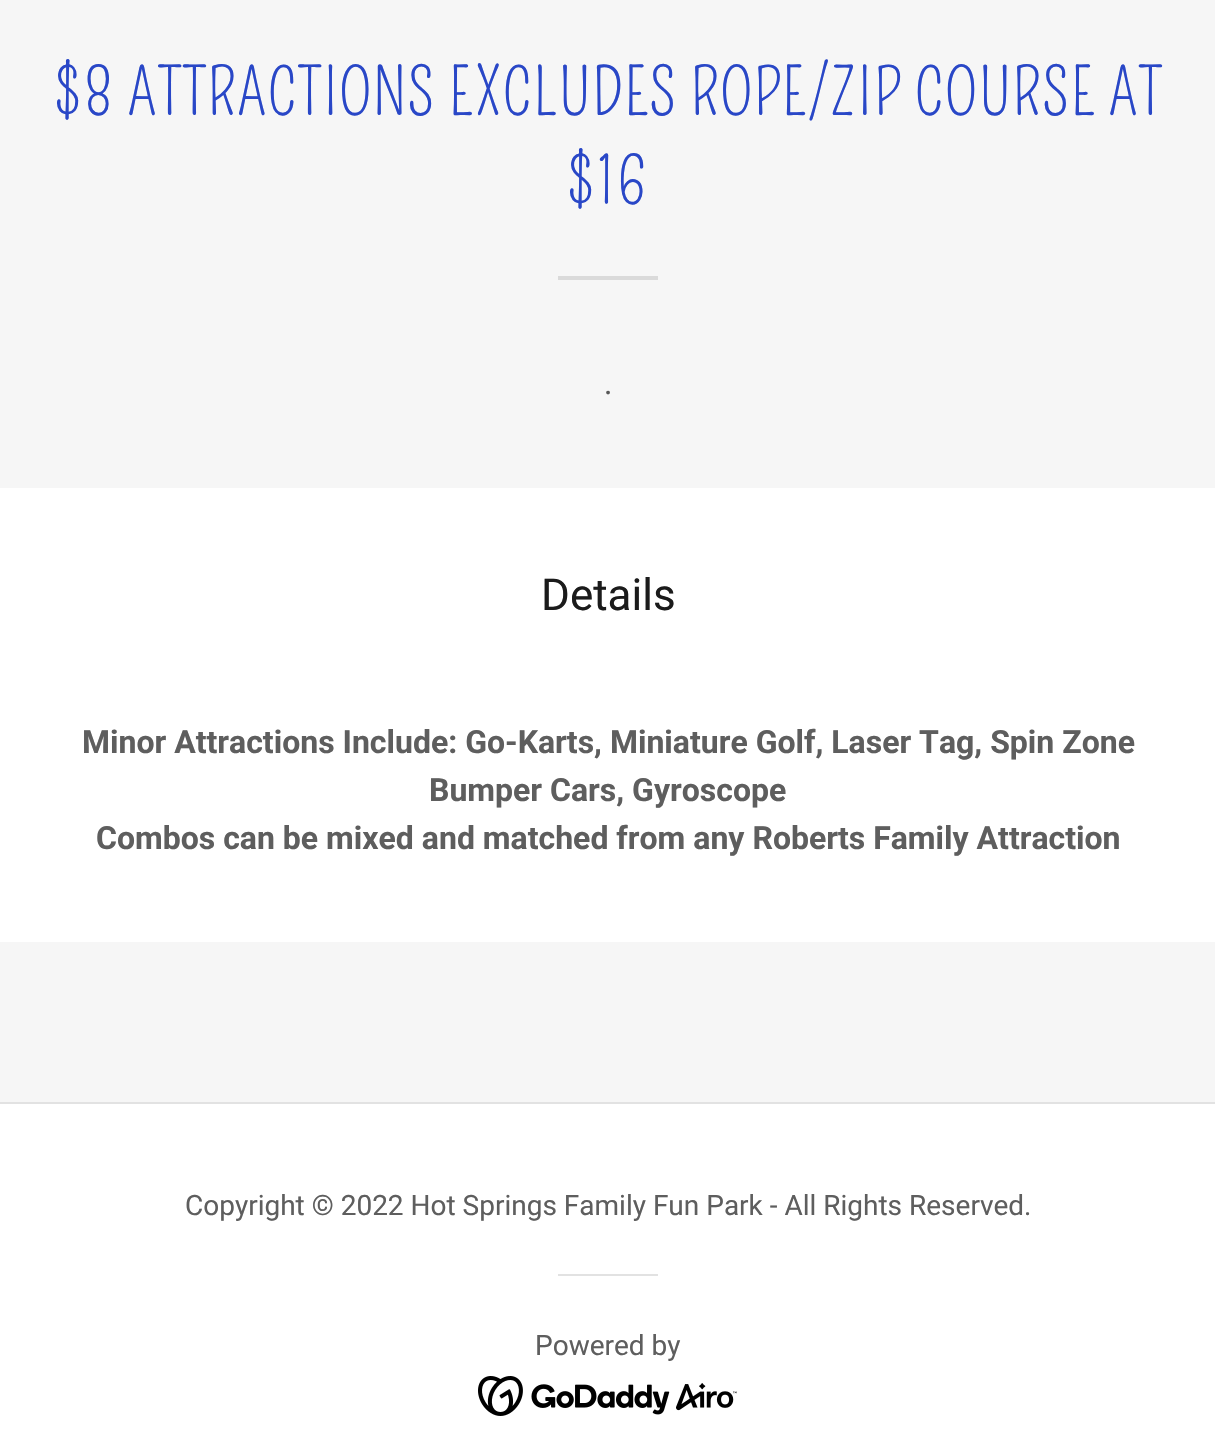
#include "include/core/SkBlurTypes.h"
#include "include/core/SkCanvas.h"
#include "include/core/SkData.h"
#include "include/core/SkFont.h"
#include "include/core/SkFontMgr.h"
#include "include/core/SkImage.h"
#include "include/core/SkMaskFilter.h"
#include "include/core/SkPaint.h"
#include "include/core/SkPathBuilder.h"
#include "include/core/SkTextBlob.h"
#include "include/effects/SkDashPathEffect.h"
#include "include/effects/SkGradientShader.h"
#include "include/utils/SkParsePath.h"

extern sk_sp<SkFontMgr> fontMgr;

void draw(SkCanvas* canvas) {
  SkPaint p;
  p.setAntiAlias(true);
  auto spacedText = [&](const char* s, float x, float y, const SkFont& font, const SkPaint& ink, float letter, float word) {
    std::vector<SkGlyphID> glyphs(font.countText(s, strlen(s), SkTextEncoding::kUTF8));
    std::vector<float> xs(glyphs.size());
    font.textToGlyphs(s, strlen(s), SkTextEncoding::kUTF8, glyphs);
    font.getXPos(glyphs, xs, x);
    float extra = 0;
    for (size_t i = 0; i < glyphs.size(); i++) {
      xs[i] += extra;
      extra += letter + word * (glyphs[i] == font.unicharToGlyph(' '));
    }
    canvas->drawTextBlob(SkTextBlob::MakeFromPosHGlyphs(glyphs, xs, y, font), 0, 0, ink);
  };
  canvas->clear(SK_ColorWHITE);
  p.setColor(SkColorSetRGB(246, 246, 246));
  canvas->drawRect(SkRect::MakeLTRB(0, 0, 1215, 488), p);
  p.setColor(SkColorSetRGB(218, 218, 218));
  canvas->drawRect(SkRect::MakeLTRB(558, 276, 658, 280), p);
  p.setColor(SkColorSetRGB(246, 246, 246));
  canvas->drawRect(SkRect::MakeLTRB(0, 942, 1215, 1102), p);
  p.setColor(SkColorSetRGB(226, 226, 226));
  canvas->drawRect(SkRect::MakeLTRB(0, 1102, 1215, 1104), p);
  canvas->drawRect(SkRect::MakeLTRB(558, 1274, 658, 1276), p);
  canvas->drawImageRect(SkImages::DeferredFromEncodedData(SkData::MakeFromFileName("images/1.png")), SkRect::MakeLTRB(478, 1376, 737, 1416), SkSamplingOptions());
  SkFont font1(fontMgr->matchFamilyStyle("Pompiere", SkFontStyle::Normal()), 64);
  font1.setSubpixel(true);
  p.setColor(SkColorSetRGB(41, 71, 199));
  spacedText("$8 ATTRACTIONS EXCLUDES ROPE/ZIP COURSE AT", 54, 115, font1, p, 1.3f, 0);
  spacedText("$16", 567, 204, font1, p, 1.3f, 0);
  SkFont font2(fontMgr->matchFamilyStyle("Roboto", SkFontStyle::Normal()), 32);
  font2.setSubpixel(true);
  p.setColor(SkColorSetRGB(87, 87, 87));
  canvas->drawString(".", 604, 394, font2, p);
  SkFont font3(fontMgr->matchFamilyStyle("Roboto", SkFontStyle::Normal()), 44);
  font3.setSubpixel(true);
  p.setColor(SkColorSetRGB(27, 27, 27));
  canvas->drawString("Details", 541, 610, font3, p);
  SkFont font4(fontMgr->matchFamilyStyle("Roboto", SkFontStyle::Bold()), 32);
  font4.setSubpixel(true);
  p.setColor(SkColorSetRGB(94, 94, 94));
  canvas->drawString("Minor Attractions Include: Go-Karts, Miniature Golf, Laser Tag, Spin Zone", 82, 753, font4, p);
  canvas->drawString("Bumper Cars, Gyroscope", 429, 801, font4, p);
  canvas->drawString("Combos can be mixed and matched from any Roberts Family Attraction", 96, 849, font4, p);
  SkFont font5(fontMgr->matchFamilyStyle("Roboto", SkFontStyle::Normal()), 28);
  font5.setSubpixel(true);
  canvas->drawString("Copyright © 2022 Hot Springs Family Fun Park - All Rights Reserved.", 185, 1215, font5, p);
  canvas->drawString("Powered by", 535, 1355, font5, p);
}
